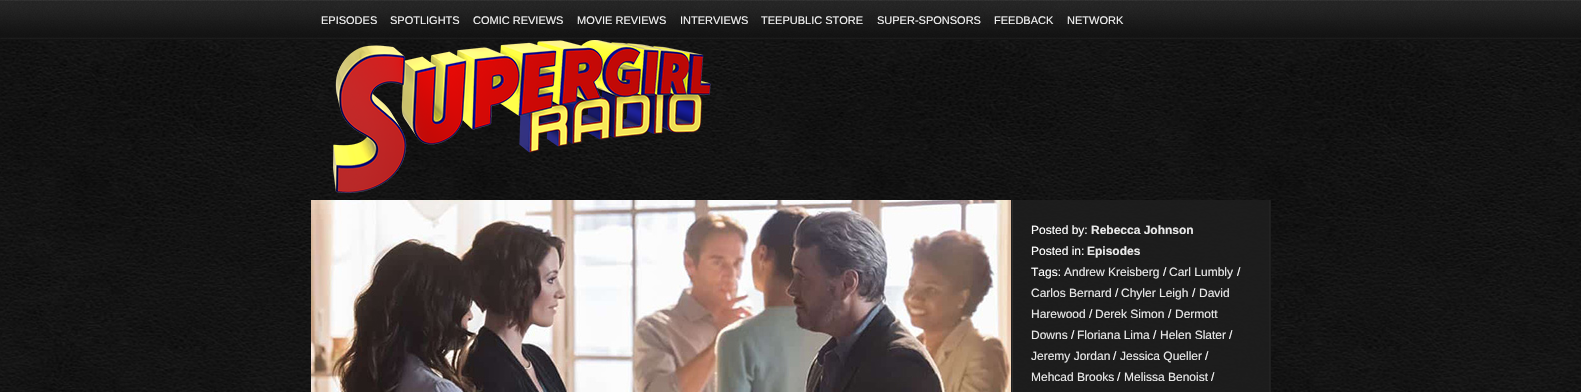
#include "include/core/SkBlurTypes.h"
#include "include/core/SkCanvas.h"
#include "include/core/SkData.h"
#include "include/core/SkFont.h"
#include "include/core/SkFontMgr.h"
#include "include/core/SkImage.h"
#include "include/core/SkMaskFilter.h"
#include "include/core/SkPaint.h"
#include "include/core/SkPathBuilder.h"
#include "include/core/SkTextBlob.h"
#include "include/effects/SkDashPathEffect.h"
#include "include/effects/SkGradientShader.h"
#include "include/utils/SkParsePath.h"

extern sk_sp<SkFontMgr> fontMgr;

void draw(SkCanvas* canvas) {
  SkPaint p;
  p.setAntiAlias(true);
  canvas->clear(SK_ColorWHITE);
  canvas->drawImageRect(SkImages::DeferredFromEncodedData(SkData::MakeFromFileName("images/1.png")), SkRect::MakeLTRB(0, 40, 1581, 392), SkSamplingOptions());
  canvas->drawImageRect(SkImages::DeferredFromEncodedData(SkData::MakeFromFileName("images/2.png")), SkRect::MakeLTRB(0, 0, 1581, 40), SkSamplingOptions());
  canvas->drawImageRect(SkImages::DeferredFromEncodedData(SkData::MakeFromFileName("images/3.png")), SkRect::MakeLTRB(333, 40, 711, 193), SkSamplingOptions());
  canvas->drawImageRect(SkImages::DeferredFromEncodedData(SkData::MakeFromFileName("images/4.png")), SkRect::MakeLTRB(1011, 200, 1271, 392), SkSamplingOptions());
  canvas->drawImageRect(SkImages::DeferredFromEncodedData(SkData::MakeFromFileName("images/5.png")), SkRect::MakeLTRB(311, 200, 1011, 392), SkSamplingOptions());
  SkFont font1(fontMgr->matchFamilyStyle("Liberation Sans", SkFontStyle::Normal()), 11);
  font1.setSubpixel(true);
  p.setColor(SkColorSetRGB(244, 244, 244));
  canvas->drawString("EPISODES", 321, 24, font1, p);
  canvas->drawString("SPOTLIGHTS", 390, 24, font1, p);
  canvas->drawString("COMIC REVIEWS", 473, 24, font1, p);
  canvas->drawString("MOVIE REVIEWS", 577, 24, font1, p);
  canvas->drawString("INTERVIEWS", 680, 24, font1, p);
  canvas->drawString("TEEPUBLIC STORE", 761, 24, font1, p);
  canvas->drawString("SUPER-SPONSORS", 877, 24, font1, p);
  canvas->drawString("FEEDBACK", 994, 24, font1, p);
  canvas->drawString("NETWORK", 1067, 24, font1, p);
  SkFont font2(fontMgr->matchFamilyStyle("Liberation Sans", SkFontStyle::Normal()), 12);
  font2.setSubpixel(true);
  p.setColor(SK_ColorWHITE);
  canvas->drawString("Posted by:", 1031, 234, font2, p);
  SkFont font3(fontMgr->matchFamilyStyle("Liberation Sans", SkFontStyle::Bold()), 12);
  font3.setSubpixel(true);
  p.setColor(SkColorSetRGB(233, 233, 233));
  canvas->drawString("Rebecca Johnson", 1091, 234, font3, p);
  p.setColor(SK_ColorWHITE);
  canvas->drawString("Posted in:", 1031, 255, font2, p);
  p.setColor(SkColorSetRGB(233, 233, 233));
  canvas->drawString("Episodes", 1087, 255, font3, p);
  p.setColor(SK_ColorWHITE);
  canvas->drawString("Tags:", 1031, 276, font2, p);
  p.setColor(SkColorSetRGB(233, 233, 233));
  canvas->drawString("Andrew Kreisberg", 1064, 276, font2, p);
  p.setColor(SK_ColorWHITE);
  canvas->drawString("/", 1163, 276, font2, p);
  p.setColor(SkColorSetRGB(233, 233, 233));
  canvas->drawString("Carl Lumbly", 1169, 276, font2, p);
  p.setColor(SK_ColorWHITE);
  canvas->drawString("/", 1237, 276, font2, p);
  p.setColor(SkColorSetRGB(233, 233, 233));
  canvas->drawString("Carlos Bernard", 1031, 297, font2, p);
  p.setColor(SK_ColorWHITE);
  canvas->drawString("/", 1115, 297, font2, p);
  p.setColor(SkColorSetRGB(233, 233, 233));
  canvas->drawString("Chyler Leigh", 1121, 297, font2, p);
  p.setColor(SK_ColorWHITE);
  canvas->drawString("/", 1192, 297, font2, p);
  p.setColor(SkColorSetRGB(233, 233, 233));
  canvas->drawString("David", 1199, 297, font2, p);
  canvas->drawString("Harewood", 1031, 318, font2, p);
  p.setColor(SK_ColorWHITE);
  canvas->drawString("/", 1089, 318, font2, p);
  p.setColor(SkColorSetRGB(233, 233, 233));
  canvas->drawString("Derek Simon", 1095, 318, font2, p);
  p.setColor(SK_ColorWHITE);
  canvas->drawString("/", 1168, 318, font2, p);
  p.setColor(SkColorSetRGB(233, 233, 233));
  canvas->drawString("Dermott", 1175, 318, font2, p);
  canvas->drawString("Downs", 1031, 339, font2, p);
  p.setColor(SK_ColorWHITE);
  canvas->drawString("/", 1071, 339, font2, p);
  p.setColor(SkColorSetRGB(233, 233, 233));
  canvas->drawString("Floriana Lima", 1077, 339, font2, p);
  p.setColor(SK_ColorWHITE);
  canvas->drawString("/", 1153, 339, font2, p);
  p.setColor(SkColorSetRGB(233, 233, 233));
  canvas->drawString("Helen Slater", 1160, 339, font2, p);
  p.setColor(SK_ColorWHITE);
  canvas->drawString("/", 1229, 339, font2, p);
  p.setColor(SkColorSetRGB(233, 233, 233));
  canvas->drawString("Jeremy Jordan", 1031, 360, font2, p);
  p.setColor(SK_ColorWHITE);
  canvas->drawString("/", 1113, 360, font2, p);
  p.setColor(SkColorSetRGB(233, 233, 233));
  canvas->drawString("Jessica Queller", 1120, 360, font2, p);
  p.setColor(SK_ColorWHITE);
  canvas->drawString("/", 1205, 360, font2, p);
  p.setColor(SkColorSetRGB(233, 233, 233));
  canvas->drawString("Mehcad Brooks", 1031, 381, font2, p);
  p.setColor(SK_ColorWHITE);
  canvas->drawString("/", 1117, 381, font2, p);
  p.setColor(SkColorSetRGB(233, 233, 233));
  canvas->drawString("Melissa Benoist", 1124, 381, font2, p);
  p.setColor(SK_ColorWHITE);
  canvas->drawString("/", 1211, 381, font2, p);
}
